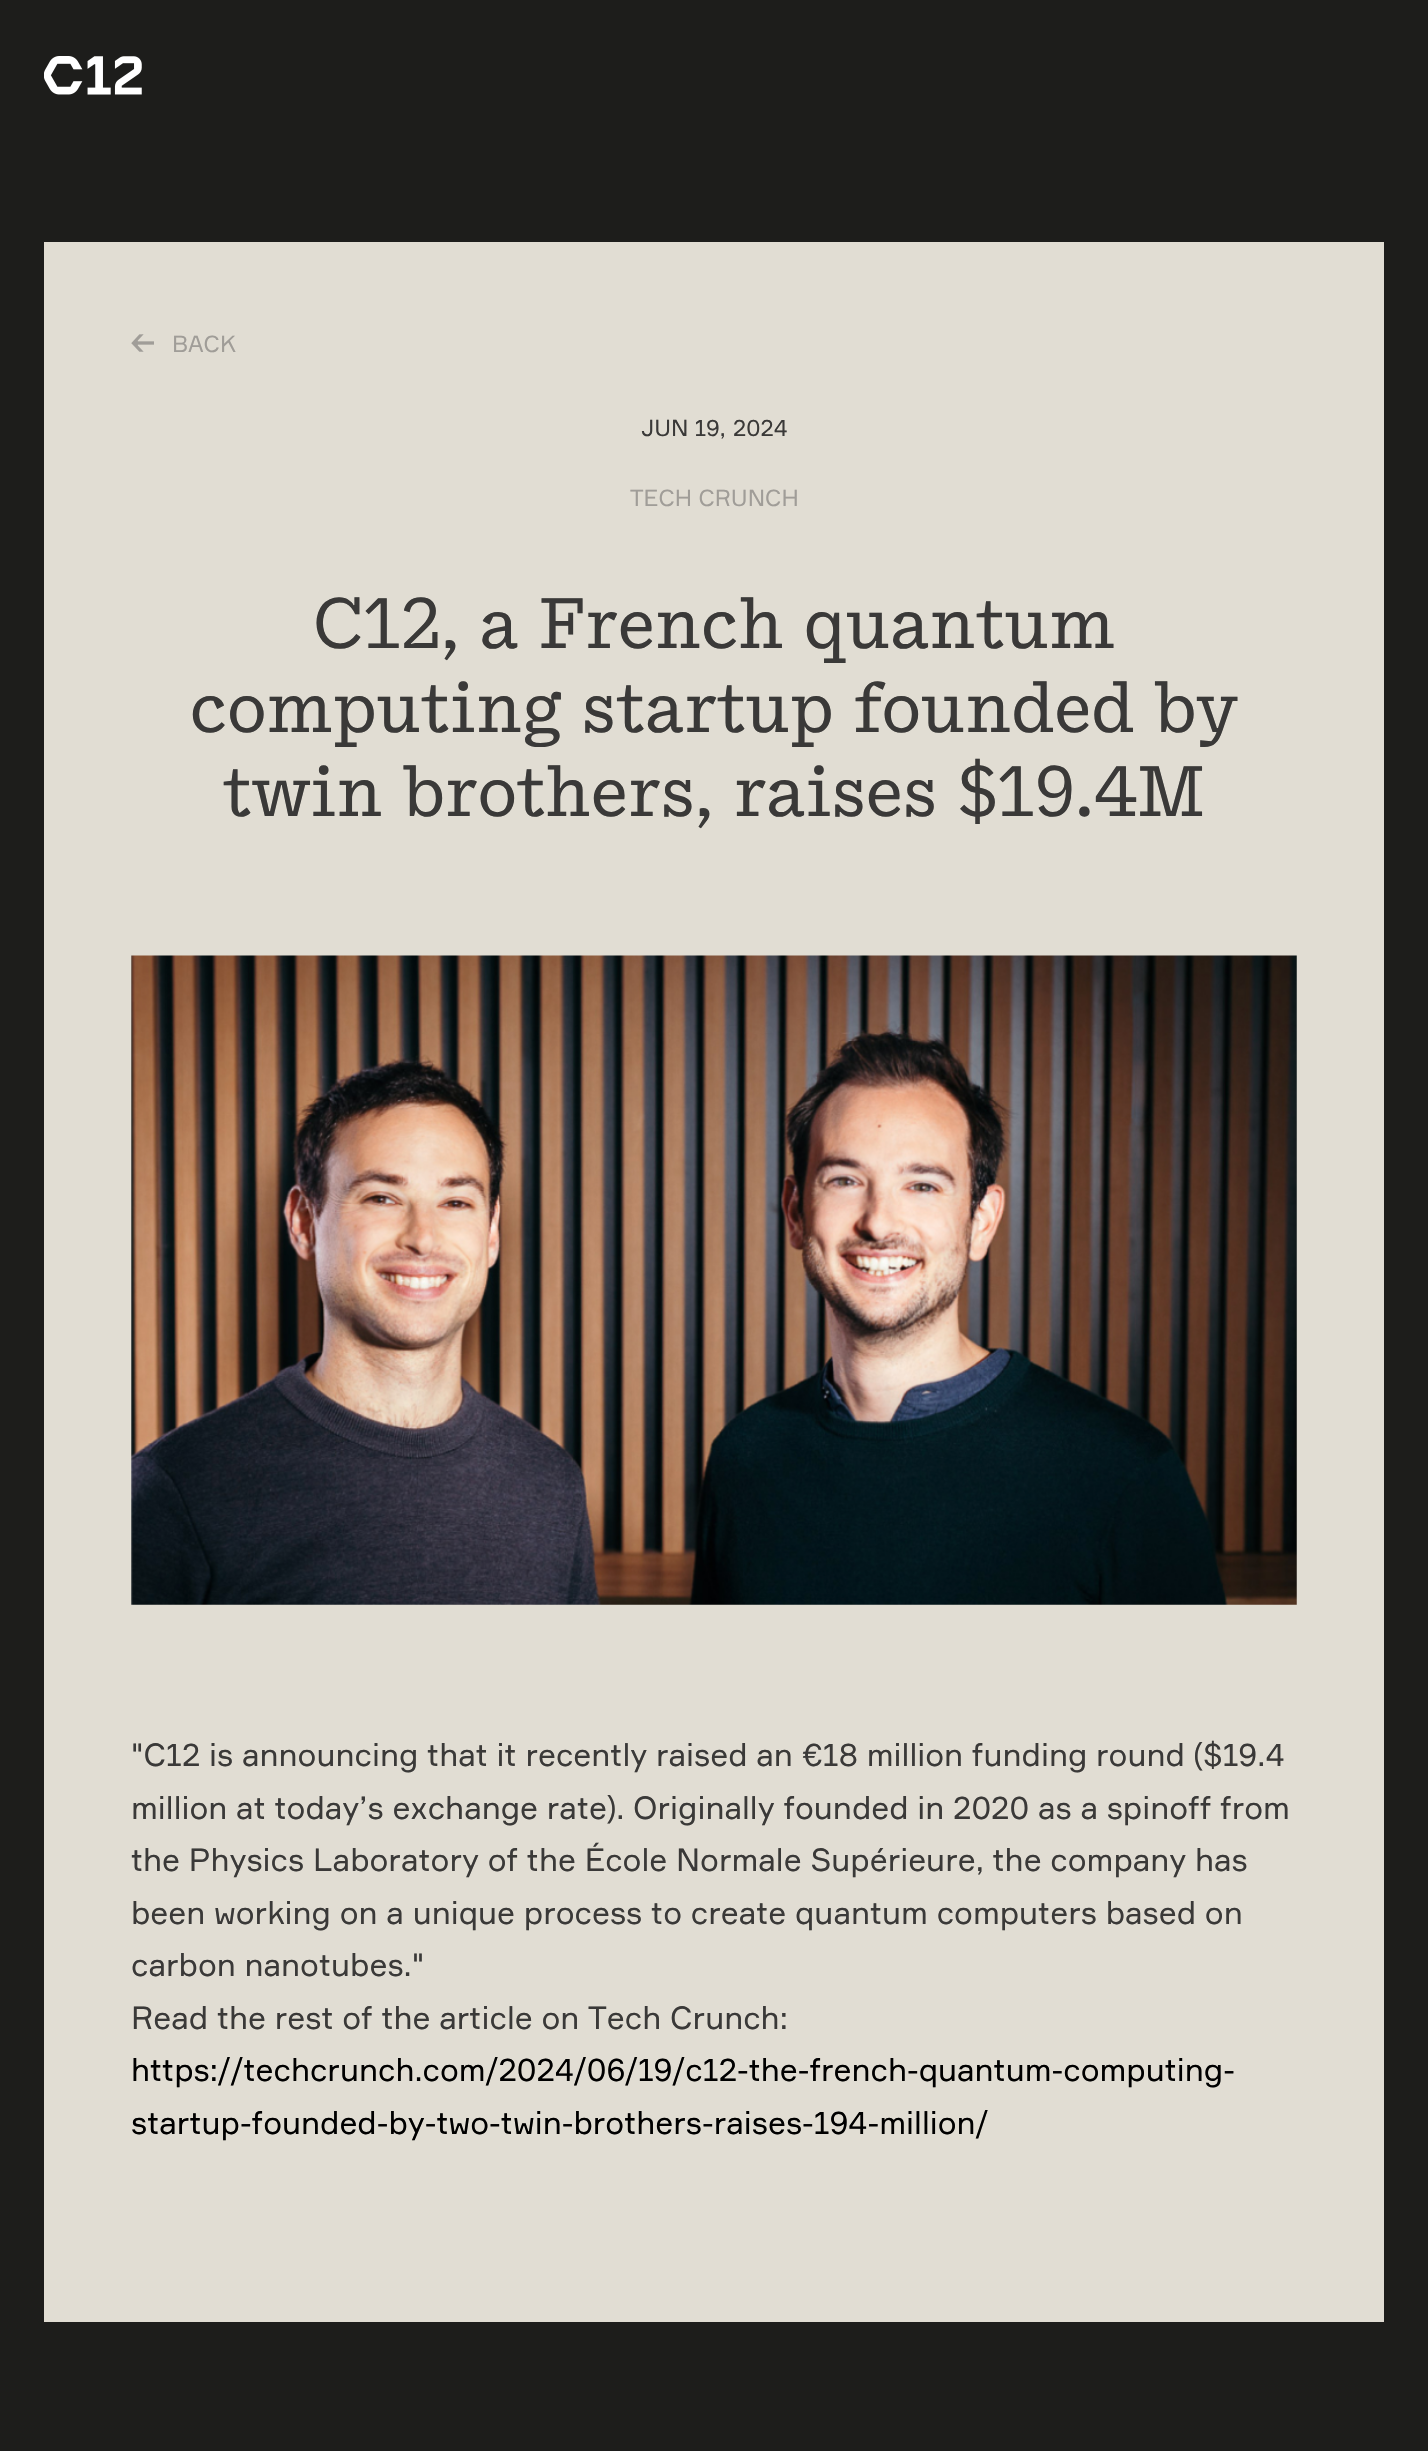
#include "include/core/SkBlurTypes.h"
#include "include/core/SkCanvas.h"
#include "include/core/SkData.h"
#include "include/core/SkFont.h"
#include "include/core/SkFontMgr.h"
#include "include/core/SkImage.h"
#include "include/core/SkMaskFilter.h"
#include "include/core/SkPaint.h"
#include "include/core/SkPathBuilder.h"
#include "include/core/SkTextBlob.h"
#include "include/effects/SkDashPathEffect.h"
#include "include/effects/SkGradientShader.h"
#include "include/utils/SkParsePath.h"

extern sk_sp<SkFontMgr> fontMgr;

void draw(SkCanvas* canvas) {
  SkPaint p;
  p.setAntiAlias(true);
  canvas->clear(SkColorSetRGB(29, 29, 27));
  canvas->drawImageRect(SkImages::DeferredFromEncodedData(SkData::MakeFromFileName("images/1.png")), SkRect::MakeLTRB(44, 56, 142, 95), SkSamplingOptions());
  p.setColor(SkColorSetRGB(225, 221, 211));
  canvas->drawRect(SkRect::MakeLTRB(44, 242, 1384, 2322), p);
  canvas->drawImageRect(SkImages::DeferredFromEncodedData(SkData::MakeFromFileName("images/2.png")), SkRect::MakeLTRB(131, 334, 154, 352), SkSamplingOptions());
  canvas->drawImageRect(SkImages::DeferredFromEncodedData(SkData::MakeFromFileName("images/3.png")), SkRect::MakeLTRB(131, 955, 1297, 1605), SkSamplingOptions());
  SkFont font1(fontMgr->matchFamilyStyle("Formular", SkFontStyle::Normal()), 22.75f);
  font1.setSubpixel(true);
  p.setColor(SkColorSetRGB(160, 157, 152));
  canvas->drawString("BACK", 172, 352, font1, p);
  p.setColor(SkColorSetRGB(58, 57, 56));
  canvas->drawString("JUN 19,", 641, 436, font1, p);
  canvas->drawString("2024", 733, 436, font1, p);
  p.setColor(SkColorSetRGB(160, 157, 152));
  canvas->drawString("TECH CRUNCH", 630, 506, font1, p);
  SkFont font2(fontMgr->matchFamilyStyle("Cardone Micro", SkFontStyle::Normal()), 70);
  font2.setSubpixel(true);
  p.setColor(SkColorSetRGB(58, 57, 56));
  canvas->drawString("C12, a French quantum", 313, 648, font2, p);
  canvas->drawString("computing startup founded by", 190, 732, font2, p);
  canvas->drawString("twin brothers, raises $19.4M", 223, 816, font2, p);
  SkFont font3(fontMgr->matchFamilyStyle("Formular", SkFontStyle::Normal()), 31.5f);
  font3.setSubpixel(true);
  canvas->drawString("\"C12 is announcing that it recently raised an €18 million funding round ($19.4", 131, 1766, font3, p);
  canvas->drawString("million at today’s exchange rate). Originally founded in 2020 as a spinoff from", 131, 1819, font3, p);
  canvas->drawString("the Physics Laboratory of the École Normale Supérieure, the company has", 131, 1871, font3, p);
  canvas->drawString("been working on a unique process to create quantum computers based on", 131, 1924, font3, p);
  canvas->drawString("carbon nanotubes.\"", 131, 1976, font3, p);
  canvas->drawString("Read the rest of the article on Tech Crunch:", 131, 2029, font3, p);
  p.setColor(SK_ColorBLACK);
  canvas->drawString("https://techcrunch.com/2024/06/19/c12-the-french-quantum-computing-", 131, 2081, font3, p);
  canvas->drawString("startup-founded-by-two-twin-brothers-raises-194-million/", 131, 2134, font3, p);
}
